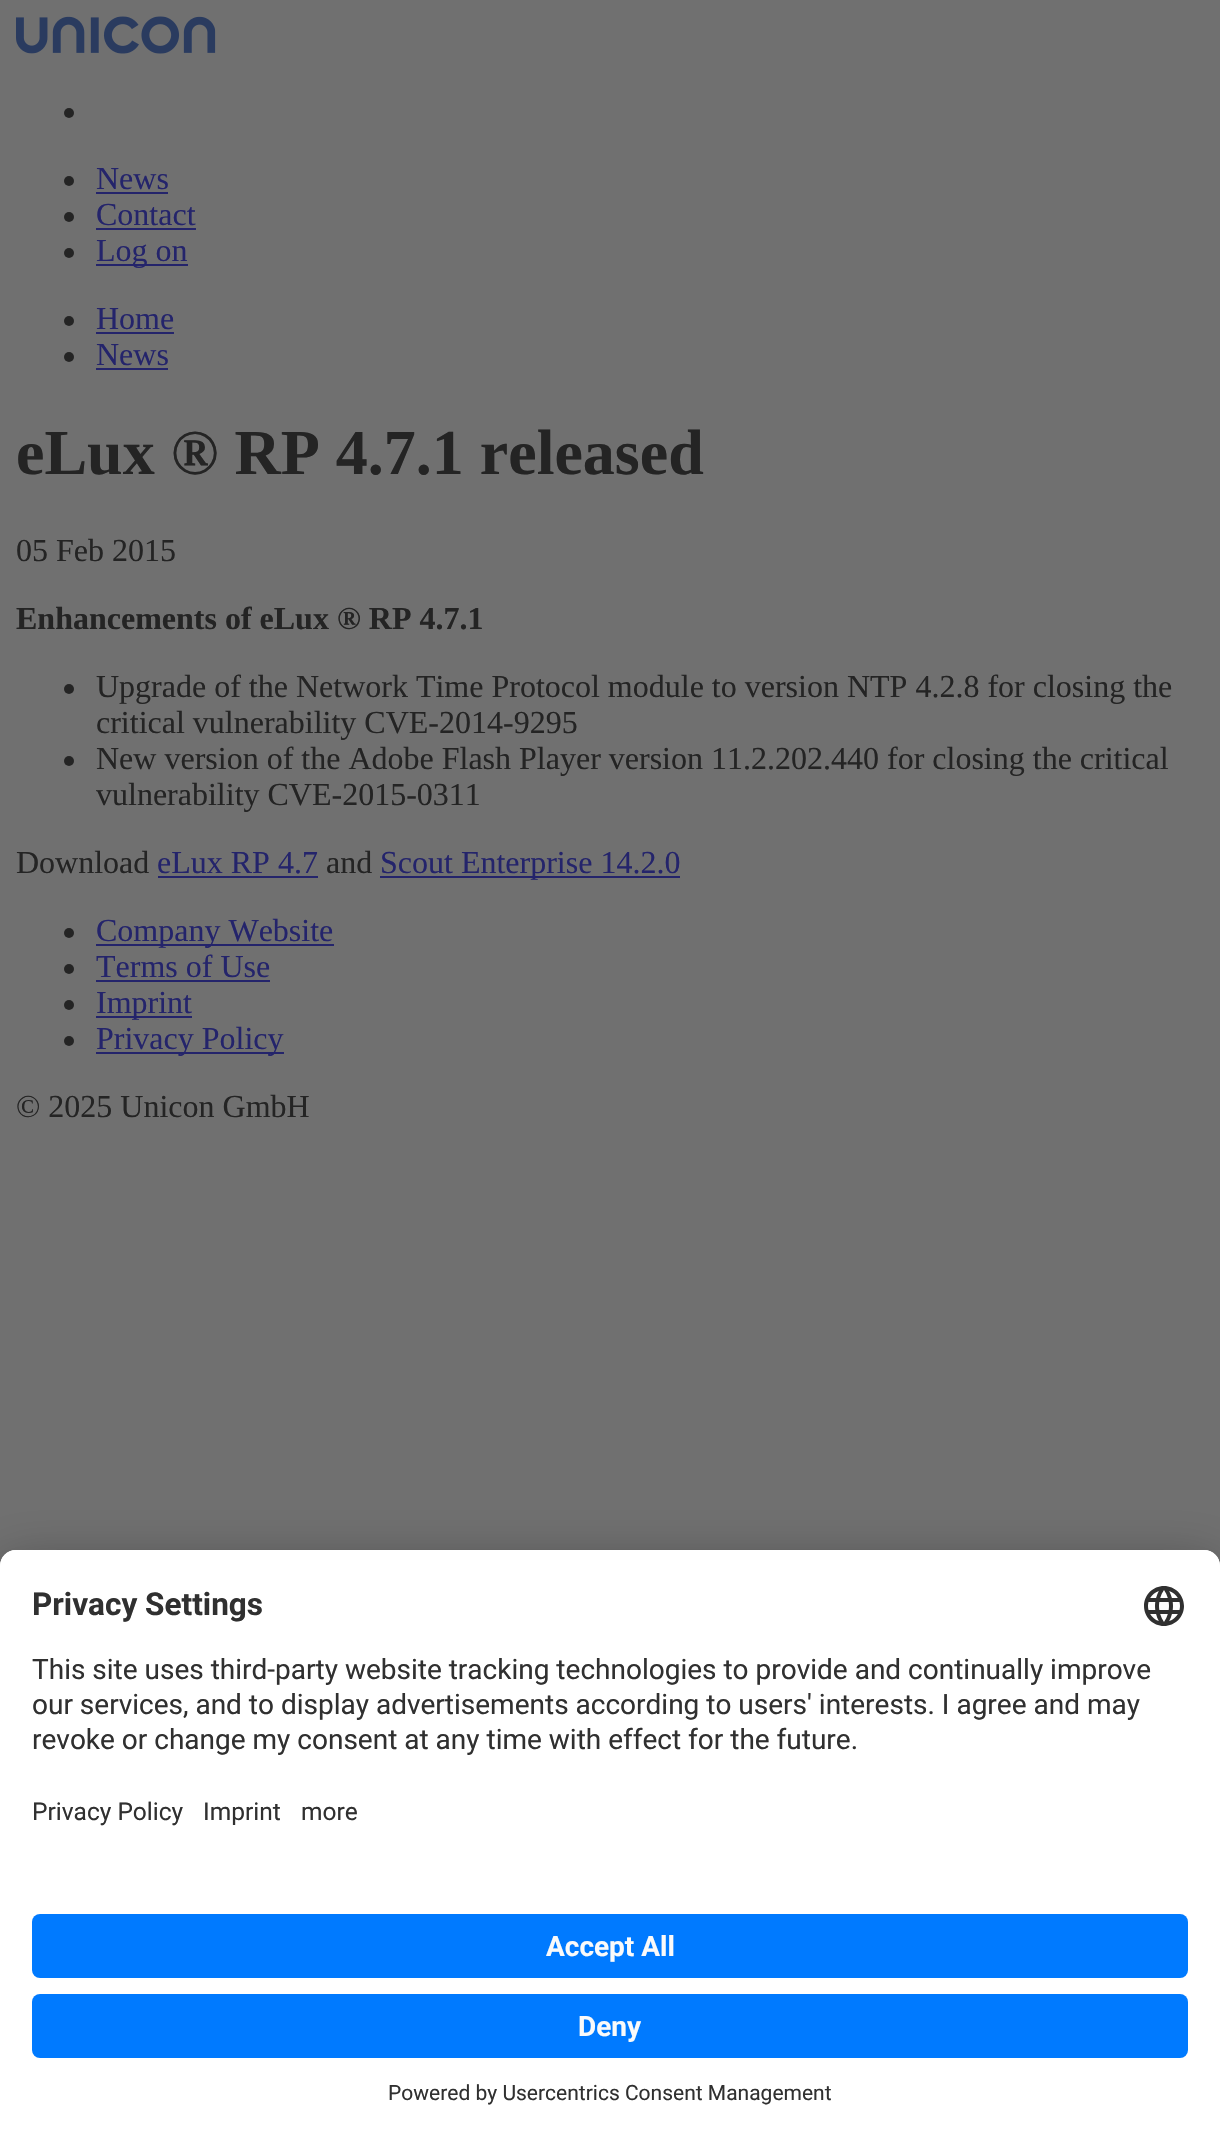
#include "include/core/SkBlurTypes.h"
#include "include/core/SkCanvas.h"
#include "include/core/SkData.h"
#include "include/core/SkFont.h"
#include "include/core/SkFontMgr.h"
#include "include/core/SkImage.h"
#include "include/core/SkMaskFilter.h"
#include "include/core/SkPaint.h"
#include "include/core/SkPathBuilder.h"
#include "include/core/SkTextBlob.h"
#include "include/effects/SkDashPathEffect.h"
#include "include/effects/SkGradientShader.h"
#include "include/utils/SkParsePath.h"

extern sk_sp<SkFontMgr> fontMgr;

void draw(SkCanvas* canvas) {
  SkPaint p;
  p.setAntiAlias(true);
  canvas->clear(SkColorSetRGB(112, 112, 112));
  canvas->drawImageRect(SkImages::DeferredFromEncodedData(SkData::MakeFromFileName("images/1.png")), SkRect::MakeLTRB(16, 16, 216, 54), SkSamplingOptions());
  p.setColor(SkColorSetRGB(36, 36, 36));
  canvas->drawCircle(69, 113, 5, p);
  canvas->drawCircle(69, 181, 5, p);
  p.setColor(SkColorSetRGB(36, 36, 107));
  canvas->drawRect(SkRect::MakeLTRB(96, 192, 168, 194), p);
  p.setColor(SkColorSetRGB(36, 36, 36));
  canvas->drawCircle(69, 217, 5, p);
  p.setColor(SkColorSetRGB(36, 36, 107));
  canvas->drawRect(SkRect::MakeLTRB(96, 228, 196, 230), p);
  p.setColor(SkColorSetRGB(36, 36, 36));
  canvas->drawCircle(69, 253, 5, p);
  p.setColor(SkColorSetRGB(36, 36, 107));
  canvas->drawRect(SkRect::MakeLTRB(96, 264, 188, 266), p);
  p.setColor(SkColorSetRGB(36, 36, 36));
  canvas->drawCircle(69, 321, 5, p);
  p.setColor(SkColorSetRGB(36, 36, 107));
  canvas->drawRect(SkRect::MakeLTRB(96, 332, 174, 334), p);
  p.setColor(SkColorSetRGB(36, 36, 36));
  canvas->drawCircle(69, 357, 5, p);
  p.setColor(SkColorSetRGB(36, 36, 107));
  canvas->drawRect(SkRect::MakeLTRB(96, 368, 168, 370), p);
  p.setColor(SkColorSetRGB(36, 36, 36));
  canvas->drawCircle(69, 689, 5, p);
  canvas->drawCircle(69, 761, 5, p);
  p.setColor(SkColorSetRGB(36, 36, 107));
  canvas->drawRect(SkRect::MakeLTRB(158, 876, 318, 878), p);
  canvas->drawRect(SkRect::MakeLTRB(380, 876, 680, 878), p);
  p.setColor(SkColorSetRGB(36, 36, 36));
  canvas->drawCircle(69, 933, 5, p);
  p.setColor(SkColorSetRGB(36, 36, 107));
  canvas->drawRect(SkRect::MakeLTRB(96, 944, 334, 946), p);
  p.setColor(SkColorSetRGB(36, 36, 36));
  canvas->drawCircle(69, 969, 5, p);
  p.setColor(SkColorSetRGB(36, 36, 107));
  canvas->drawRect(SkRect::MakeLTRB(96, 980, 270, 982), p);
  p.setColor(SkColorSetRGB(36, 36, 36));
  canvas->drawCircle(69, 1005, 5, p);
  p.setColor(SkColorSetRGB(36, 36, 107));
  canvas->drawRect(SkRect::MakeLTRB(96, 1016, 192, 1018), p);
  p.setColor(SkColorSetRGB(36, 36, 36));
  canvas->drawCircle(69, 1041, 5, p);
  p.setColor(SkColorSetRGB(36, 36, 107));
  canvas->drawRect(SkRect::MakeLTRB(96, 1052, 284, 1054), p);
  p.setColor(SkColorSetARGB(77, 0, 0, 0));
  p.setMaskFilter(SkMaskFilter::MakeBlur(kNormal_SkBlurStyle, 28));
  canvas->drawRoundRect(SkRect::MakeLTRB(0, 1590, 1220, 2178), 16, 16, p);
  p.setMaskFilter(nullptr);
  p.setColor(SkColorSetARGB(56, 0, 0, 0));
  p.setMaskFilter(SkMaskFilter::MakeBlur(kNormal_SkBlurStyle, 26));
  canvas->drawRoundRect(SkRect::MakeLTRB(0, 1560, 1220, 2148), 16, 16, p);
  p.setMaskFilter(nullptr);
  p.setColor(SK_ColorWHITE);
  canvas->drawPath(SkPathBuilder().moveTo(16, 1550).lineTo(1204, 1550).cubicTo(1213, 1550, 1220, 1557, 1220, 1566).lineTo(1220, 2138).lineTo(0, 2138).lineTo(0, 1566).cubicTo(0, 1557, 7, 1550, 16, 1550).close().detach(), p);
  canvas->drawPath(SkPathBuilder().moveTo(16, 1550).lineTo(1204, 1550).cubicTo(1213, 1550, 1220, 1557, 1220, 1566).lineTo(1220, 1890).lineTo(0, 1890).lineTo(0, 1566).cubicTo(0, 1557, 7, 1550, 16, 1550).close().detach(), p);
  canvas->drawImageRect(SkImages::DeferredFromEncodedData(SkData::MakeFromFileName("images/2.png")), SkRect::MakeLTRB(1144, 1586, 1184, 1626), SkSamplingOptions());
  p.setColor(SkColorSetRGB(0, 122, 255));
  canvas->drawRoundRect(SkRect::MakeLTRB(32, 1914, 1188, 1978), 8, 8, p);
  canvas->drawRoundRect(SkRect::MakeLTRB(32, 1994, 1188, 2058), 8, 8, p);
  SkFont font1(fontMgr->matchFamilyStyle("Liberation Serif", SkFontStyle::Normal()), 32);
  font1.setSubpixel(true);
  p.setColor(SkColorSetRGB(36, 36, 107));
  canvas->drawString("News", 96, 189, font1, p);
  canvas->drawString("Contact", 96, 225, font1, p);
  canvas->drawString("Log on", 96, 261, font1, p);
  canvas->drawString("Home", 96, 329, font1, p);
  canvas->drawString("News", 96, 365, font1, p);
  SkFont font2(fontMgr->matchFamilyStyle("Liberation Serif", SkFontStyle::Bold()), 64);
  font2.setSubpixel(true);
  p.setColor(SkColorSetRGB(36, 36, 36));
  canvas->drawString("eLux ® RP 4.7.1 released", 16, 474, font2, p);
  canvas->drawString("05 Feb 2015", 16, 561, font1, p);
  SkFont font3(fontMgr->matchFamilyStyle("Liberation Serif", SkFontStyle::Bold()), 32);
  font3.setSubpixel(true);
  canvas->drawString("Enhancements of eLux ® RP 4.7.1", 16, 629, font3, p);
  canvas->drawString("Upgrade of the Network Time Protocol module to version NTP 4.2.8 for closing the", 96, 697, font1, p);
  canvas->drawString("critical vulnerability CVE-2014-9295", 96, 733, font1, p);
  canvas->drawString("New version of the Adobe Flash Player version 11.2.202.440 for closing the critical", 96, 769, font1, p);
  canvas->drawString("vulnerability CVE-2015-0311", 96, 805, font1, p);
  canvas->drawString("Download", 16, 873, font1, p);
  p.setColor(SkColorSetRGB(36, 36, 107));
  canvas->drawString("eLux RP 4.7", 157, 873, font1, p);
  p.setColor(SkColorSetRGB(36, 36, 36));
  canvas->drawString("and", 326, 873, font1, p);
  p.setColor(SkColorSetRGB(36, 36, 107));
  canvas->drawString("Scout Enterprise 14.2.0", 380, 873, font1, p);
  canvas->drawString("Company Website", 96, 941, font1, p);
  canvas->drawString("Terms of Use", 96, 977, font1, p);
  canvas->drawString("Imprint", 96, 1013, font1, p);
  canvas->drawString("Privacy Policy", 96, 1049, font1, p);
  p.setColor(SkColorSetRGB(36, 36, 36));
  canvas->drawString("© 2025 Unicon GmbH", 16, 1117, font1, p);
  SkFont font4(fontMgr->matchFamilyStyle("Roboto", SkFontStyle::Bold()), 31.5f);
  font4.setSubpixel(true);
  p.setColor(SkColorSetRGB(48, 48, 48));
  canvas->drawString("Privacy Settings", 32, 1615, font4, p);
  SkFont font5(fontMgr->matchFamilyStyle("Roboto", SkFontStyle::Normal()), 28);
  font5.setSubpixel(true);
  canvas->drawString("This site uses third-party website tracking technologies to provide and continually improve", 32, 1679, font5, p);
  canvas->drawString("our services, and to display advertisements according to users' interests. I agree and may", 32, 1714, font5, p);
  canvas->drawString("revoke or change my consent at any time with effect for the future.", 32, 1749, font5, p);
  SkFont font6(fontMgr->matchFamilyStyle("Roboto", SkFontStyle::Normal()), 24.5f);
  font6.setSubpixel(true);
  canvas->drawString("Privacy Policy", 32, 1820, font6, p);
  canvas->drawString("Imprint", 203, 1820, font6, p);
  canvas->drawString("more", 301, 1820, font6, p);
  SkFont font7(fontMgr->matchFamilyStyle("Roboto", SkFontStyle::Bold()), 28);
  font7.setSubpixel(true);
  p.setColor(SkColorSetRGB(250, 250, 250));
  canvas->drawString("Accept All", 546, 1956, font7, p);
  canvas->drawString("Deny", 578, 2036, font7, p);
  SkFont font8(fontMgr->matchFamilyStyle("Roboto", SkFontStyle::Normal()), 21);
  font8.setSubpixel(true);
  p.setColor(SkColorSetRGB(48, 48, 48));
  canvas->drawString("Powered by Usercentrics Consent Management", 388, 2100, font8, p);
}
